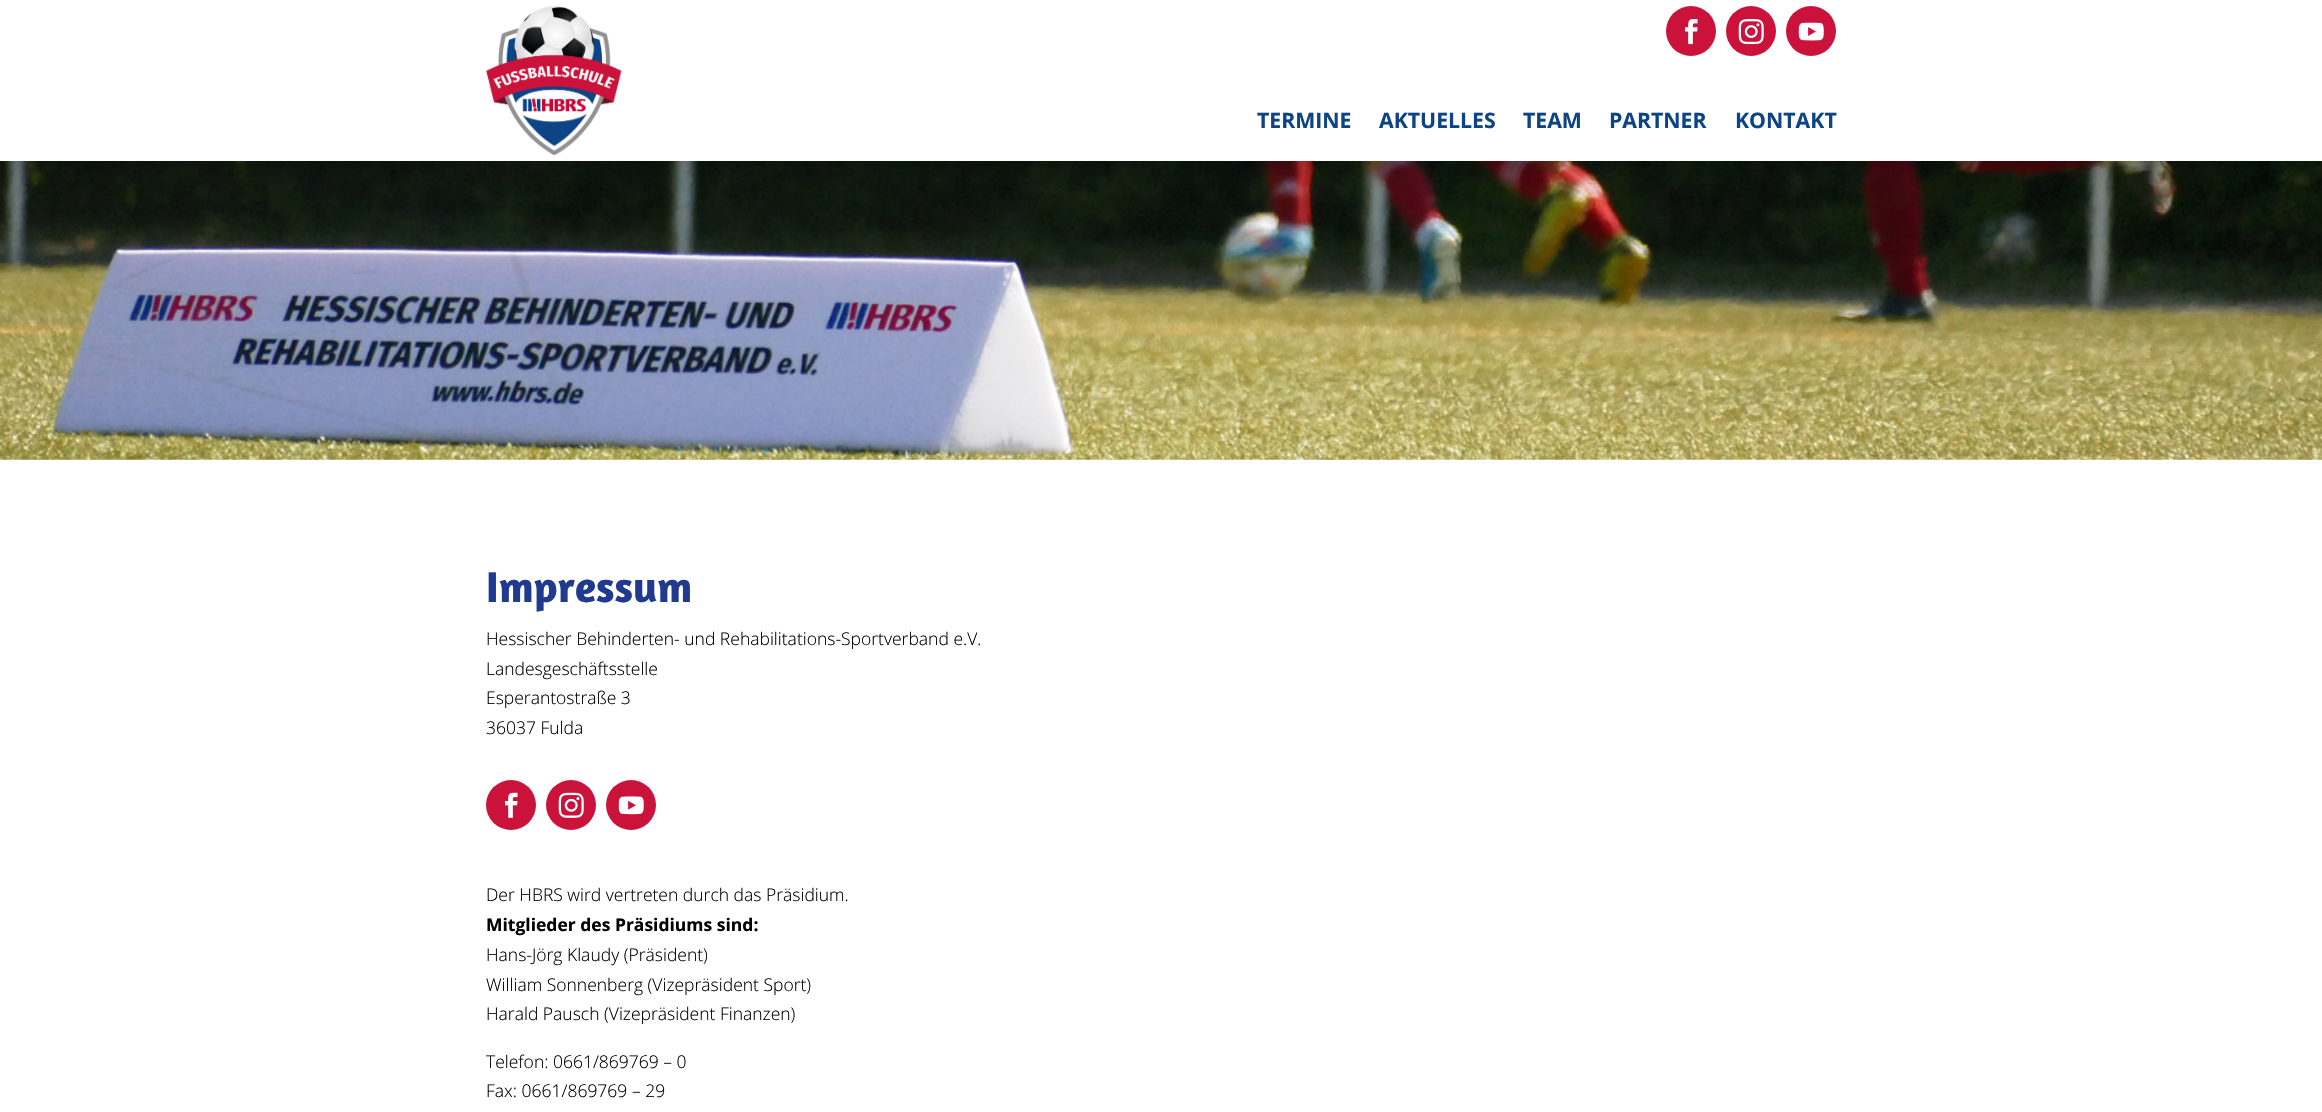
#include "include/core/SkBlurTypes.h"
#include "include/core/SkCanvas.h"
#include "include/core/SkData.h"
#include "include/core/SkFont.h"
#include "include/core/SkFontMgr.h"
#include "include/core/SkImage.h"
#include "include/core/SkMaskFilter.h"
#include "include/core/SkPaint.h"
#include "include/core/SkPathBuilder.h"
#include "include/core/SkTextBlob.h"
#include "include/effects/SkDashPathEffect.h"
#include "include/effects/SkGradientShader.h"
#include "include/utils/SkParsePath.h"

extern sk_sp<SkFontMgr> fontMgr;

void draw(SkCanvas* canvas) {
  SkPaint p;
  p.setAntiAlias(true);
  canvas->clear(SK_ColorWHITE);
  canvas->drawImageRect(SkImages::DeferredFromEncodedData(SkData::MakeFromFileName("images/5.png")), SkRect::MakeLTRB(0, 161, 2322, 460), SkSamplingOptions());
  p.setColor(SkColorSetARGB(51, 0, 0, 0));
  p.setMaskFilter(SkMaskFilter::MakeBlur(kNormal_SkBlurStyle, 11));
  canvas->drawRect(SkRect::MakeLTRB(8, 15, 2315, 161), p);
  p.setMaskFilter(nullptr);
  p.setColor(SK_ColorWHITE);
  canvas->drawRect(SkRect::MakeLTRB(0, 0, 2322, 161), p);
  canvas->drawImageRect(SkImages::DeferredFromEncodedData(SkData::MakeFromFileName("images/1.png")), SkRect::MakeLTRB(486, 6, 622, 155), SkSamplingOptions());
  p.setColor(SkColorSetRGB(202, 18, 58));
  canvas->drawCircle(1691, 31, 25, p);
  canvas->drawImageRect(SkImages::DeferredFromEncodedData(SkData::MakeFromFileName("images/2.png")), SkRect::MakeLTRB(1685, 19, 1698, 45), SkSamplingOptions());
  canvas->drawCircle(1751, 31, 25, p);
  canvas->drawImageRect(SkImages::DeferredFromEncodedData(SkData::MakeFromFileName("images/3.png")), SkRect::MakeLTRB(1738, 19, 1764, 45), SkSamplingOptions());
  canvas->drawCircle(1811, 31, 25, p);
  canvas->drawImageRect(SkImages::DeferredFromEncodedData(SkData::MakeFromFileName("images/4.png")), SkRect::MakeLTRB(1798, 22, 1824, 41), SkSamplingOptions());
  canvas->drawCircle(511, 805, 25, p);
  canvas->drawImageRect(SkImages::DeferredFromEncodedData(SkData::MakeFromFileName("images/6.png")), SkRect::MakeLTRB(505, 792, 518, 818), SkSamplingOptions());
  canvas->drawCircle(571, 805, 25, p);
  canvas->drawImageRect(SkImages::DeferredFromEncodedData(SkData::MakeFromFileName("images/7.png")), SkRect::MakeLTRB(558, 792, 584, 818), SkSamplingOptions());
  canvas->drawCircle(631, 805, 25, p);
  canvas->drawImageRect(SkImages::DeferredFromEncodedData(SkData::MakeFromFileName("images/8.png")), SkRect::MakeLTRB(618, 796, 644, 815), SkSamplingOptions());
  SkFont font1(fontMgr->matchFamilyStyle("Open Sans", SkFontStyle::Bold()), 21.25f);
  font1.setSubpixel(true);
  p.setColor(SkColorSetRGB(13, 68, 134));
  canvas->drawString("TERMINE", 1257, 128, font1, p);
  canvas->drawString("AKTUELLES", 1379, 128, font1, p);
  canvas->drawString("TEAM", 1523, 128, font1, p);
  canvas->drawString("PARTNER", 1609, 128, font1, p);
  canvas->drawString("KONTAKT", 1735, 128, font1, p);
  SkFont font2(fontMgr->matchFamilyStyle("Amaranth", SkFontStyle::Bold()), 43.75f);
  font2.setSubpixel(true);
  p.setColor(SkColorSetRGB(32, 58, 143));
  canvas->drawString("Impressum", 486, 602, font2, p);
  SkFont font3(fontMgr->matchFamilyStyle("Open Sans", SkFontStyle(300, SkFontStyle::kNormal_Width, SkFontStyle::kUpright_Slant)), 17.5f);
  font3.setSubpixel(true);
  p.setColor(SK_ColorBLACK);
  canvas->drawString("Hessischer Behinderten- und Rehabilitations-Sportverband e.V.", 486, 645, font3, p);
  canvas->drawString("Landesgeschäftsstelle", 486, 675, font3, p);
  canvas->drawString("Esperantostraße 3", 486, 704, font3, p);
  canvas->drawString("36037 Fulda", 486, 734, font3, p);
  canvas->drawString("Der HBRS wird vertreten durch das Präsidium.", 486, 901, font3, p);
  SkFont font4(fontMgr->matchFamilyStyle("Open Sans", SkFontStyle::Bold()), 17.5f);
  font4.setSubpixel(true);
  canvas->drawString("Mitglieder des Präsidiums sind:", 486, 931, font4, p);
  canvas->drawString("Hans-Jörg Klaudy (Präsident)", 486, 961, font3, p);
  canvas->drawString("William Sonnenberg (Vizepräsident Sport)", 486, 991, font3, p);
  canvas->drawString("Harald Pausch (Vizepräsident Finanzen)", 486, 1020, font3, p);
  canvas->drawString("Telefon: 0661/869769 – 0", 486, 1068, font3, p);
  canvas->drawString("Fax: 0661/869769 – 29", 486, 1097, font3, p);
}
